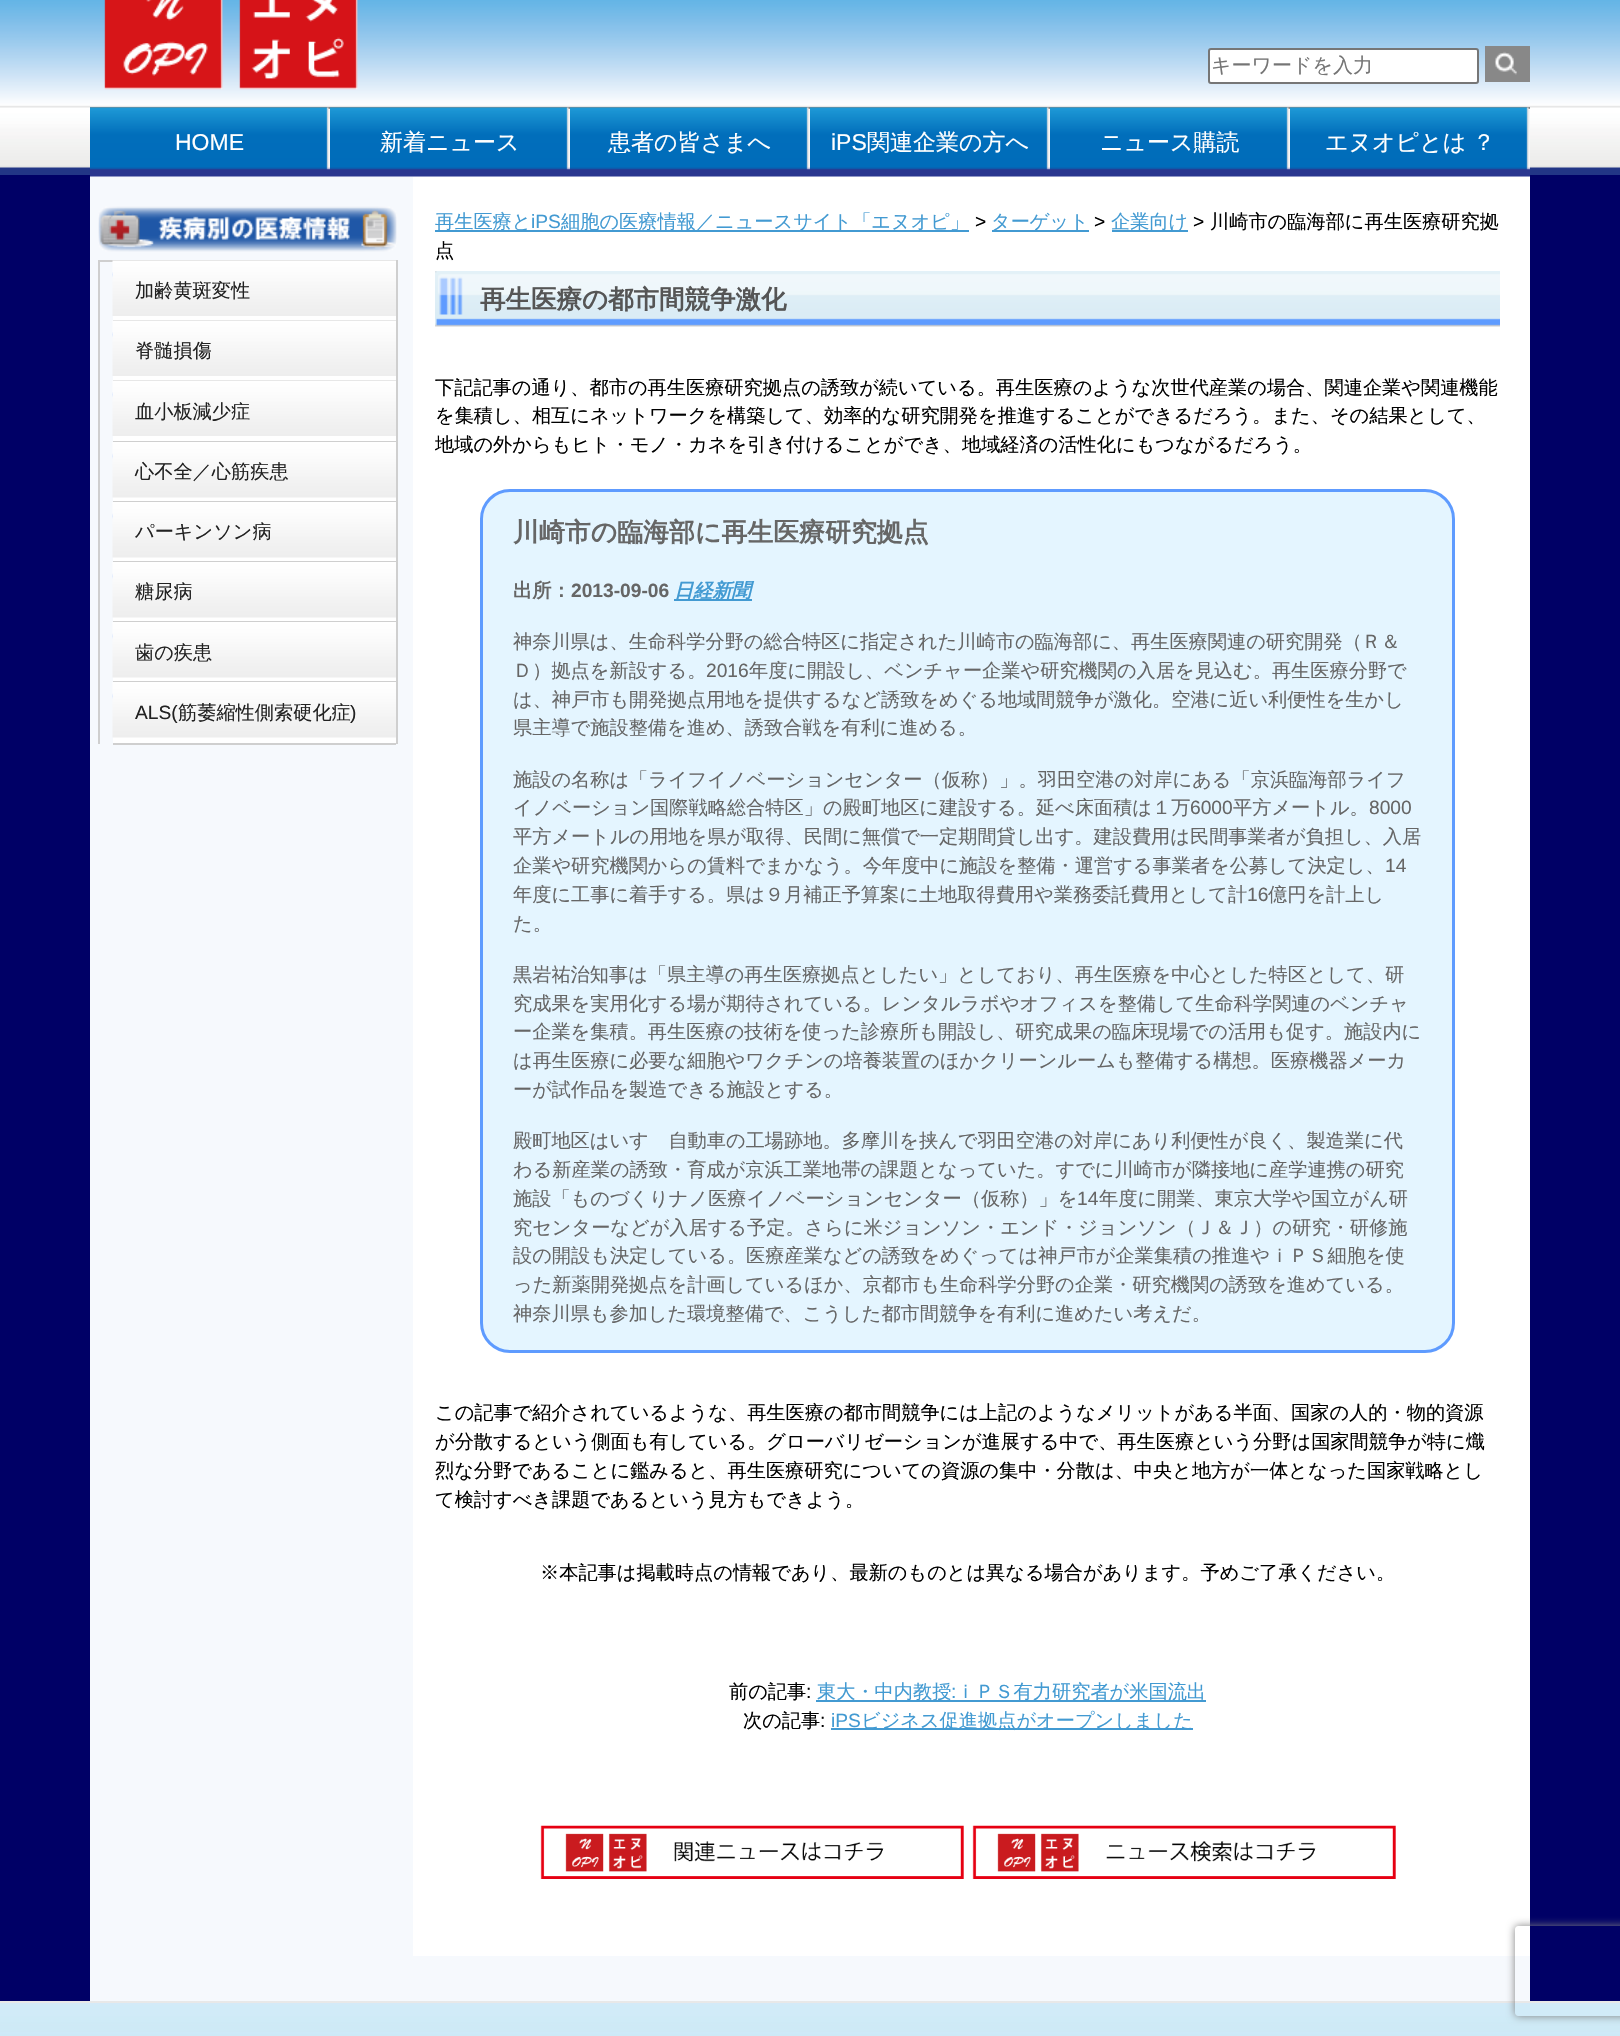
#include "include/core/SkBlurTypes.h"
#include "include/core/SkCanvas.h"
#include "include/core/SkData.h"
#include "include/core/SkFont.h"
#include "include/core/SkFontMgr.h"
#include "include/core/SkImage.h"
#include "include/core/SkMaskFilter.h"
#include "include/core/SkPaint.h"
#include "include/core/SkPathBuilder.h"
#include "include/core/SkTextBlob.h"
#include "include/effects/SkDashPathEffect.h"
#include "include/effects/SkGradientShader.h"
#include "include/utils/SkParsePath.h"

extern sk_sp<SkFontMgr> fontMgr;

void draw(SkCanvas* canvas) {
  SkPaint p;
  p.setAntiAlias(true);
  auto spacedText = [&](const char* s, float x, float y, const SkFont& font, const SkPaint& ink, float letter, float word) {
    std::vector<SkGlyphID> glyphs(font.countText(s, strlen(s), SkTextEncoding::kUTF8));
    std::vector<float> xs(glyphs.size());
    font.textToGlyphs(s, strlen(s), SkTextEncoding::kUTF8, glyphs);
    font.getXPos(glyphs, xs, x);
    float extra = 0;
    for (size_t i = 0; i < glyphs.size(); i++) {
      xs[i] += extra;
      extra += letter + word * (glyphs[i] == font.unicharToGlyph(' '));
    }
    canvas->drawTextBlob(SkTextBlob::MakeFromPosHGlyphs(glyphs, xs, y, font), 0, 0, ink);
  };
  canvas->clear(SkColorSetRGB(0, 0, 102));
  canvas->drawImageRect(SkImages::DeferredFromEncodedData(SkData::MakeFromFileName("images/1.png")), SkRect::MakeLTRB(0, 0, 1620, 175), SkSamplingOptions());
  p.setColor(SkColorSetRGB(246, 249, 253));
  canvas->drawRect(SkRect::MakeLTRB(90, 109, 1530, 2001), p);
  canvas->drawImageRect(SkImages::DeferredFromEncodedData(SkData::MakeFromFileName("images/2.png")), SkRect::MakeLTRB(90, 0, 1530, 107), SkSamplingOptions());
  p.setColor(SkColorSetRGB(135, 135, 135));
  canvas->drawRect(SkRect::MakeLTRB(90, 107, 1530, 109), p);
  canvas->drawImageRect(SkImages::DeferredFromEncodedData(SkData::MakeFromFileName("images/3.png")), SkRect::MakeLTRB(104, 0, 358, 90), SkSamplingOptions());
  p.setColor(SK_ColorWHITE);
  canvas->drawRoundRect(SkRect::MakeLTRB(1209, 49, 1478, 83), 2, 2, p);
  p.setStyle(SkPaint::kStroke_Style);
  p.setStrokeWidth(2);
  p.setColor(SkColorSetRGB(118, 118, 118));
  canvas->drawRoundRect(SkRect::MakeLTRB(1209, 49, 1478, 83), 2, 2, p);
  canvas->drawImageRect(SkImages::DeferredFromEncodedData(SkData::MakeFromFileName("images/4.png")), SkRect::MakeLTRB(1485, 46, 1530, 82), SkSamplingOptions());
  canvas->drawImageRect(SkImages::DeferredFromEncodedData(SkData::MakeFromFileName("images/5.png")), SkRect::MakeLTRB(90, 107, 330, 177), SkSamplingOptions());
  canvas->drawImageRect(SkImages::DeferredFromEncodedData(SkData::MakeFromFileName("images/5.png")), SkRect::MakeLTRB(330, 107, 570, 177), SkSamplingOptions());
  canvas->drawImageRect(SkImages::DeferredFromEncodedData(SkData::MakeFromFileName("images/6.png")), SkRect::MakeLTRB(570, 107, 810, 177), SkSamplingOptions());
  canvas->drawImageRect(SkImages::DeferredFromEncodedData(SkData::MakeFromFileName("images/5.png")), SkRect::MakeLTRB(810, 107, 1050, 177), SkSamplingOptions());
  canvas->drawImageRect(SkImages::DeferredFromEncodedData(SkData::MakeFromFileName("images/5.png")), SkRect::MakeLTRB(1050, 107, 1290, 177), SkSamplingOptions());
  canvas->drawImageRect(SkImages::DeferredFromEncodedData(SkData::MakeFromFileName("images/6.png")), SkRect::MakeLTRB(1290, 107, 1530, 177), SkSamplingOptions());
  canvas->drawImageRect(SkImages::DeferredFromEncodedData(SkData::MakeFromFileName("images/7.png")), SkRect::MakeLTRB(98, 206, 397, 252), SkSamplingOptions());
  p.setStyle(SkPaint::kFill_Style);
  p.setColor(SkColorSetRGB(207, 207, 207));
  canvas->drawRect(SkRect::MakeLTRB(98, 260, 398, 262), p);
  canvas->drawRect(SkRect::MakeLTRB(396, 260, 398, 744), p);
  canvas->drawRect(SkRect::MakeLTRB(98, 260, 100, 744), p);
  canvas->drawImageRect(SkImages::DeferredFromEncodedData(SkData::MakeFromFileName("images/8.png")), SkRect::MakeLTRB(112, 272, 113, 278), SkSamplingOptions());
  p.setColor(SK_ColorWHITE);
  canvas->drawRect(SkRect::MakeLTRB(113, 316, 396, 320), p);
  canvas->drawImageRect(SkImages::DeferredFromEncodedData(SkData::MakeFromFileName("images/9.png")), SkRect::MakeLTRB(112, 260, 396, 316), SkSamplingOptions());
  p.setColor(SkColorSetRGB(207, 207, 207));
  canvas->drawRect(SkRect::MakeLTRB(113, 320, 396, 321), p);
  canvas->drawImageRect(SkImages::DeferredFromEncodedData(SkData::MakeFromFileName("images/8.png")), SkRect::MakeLTRB(112, 332, 113, 338), SkSamplingOptions());
  p.setColor(SK_ColorWHITE);
  canvas->drawRect(SkRect::MakeLTRB(113, 376, 396, 380), p);
  canvas->drawImageRect(SkImages::DeferredFromEncodedData(SkData::MakeFromFileName("images/10.png")), SkRect::MakeLTRB(112, 320, 396, 376), SkSamplingOptions());
  p.setColor(SkColorSetRGB(207, 207, 207));
  canvas->drawRect(SkRect::MakeLTRB(113, 380, 396, 381), p);
  canvas->drawImageRect(SkImages::DeferredFromEncodedData(SkData::MakeFromFileName("images/8.png")), SkRect::MakeLTRB(112, 392, 113, 398), SkSamplingOptions());
  p.setColor(SK_ColorWHITE);
  canvas->drawRect(SkRect::MakeLTRB(113, 436, 396, 441), p);
  canvas->drawImageRect(SkImages::DeferredFromEncodedData(SkData::MakeFromFileName("images/10.png")), SkRect::MakeLTRB(112, 380, 396, 436), SkSamplingOptions());
  p.setColor(SkColorSetRGB(207, 207, 207));
  canvas->drawRect(SkRect::MakeLTRB(113, 441, 396, 442), p);
  canvas->drawImageRect(SkImages::DeferredFromEncodedData(SkData::MakeFromFileName("images/11.png")), SkRect::MakeLTRB(112, 453, 113, 459), SkSamplingOptions());
  p.setColor(SK_ColorWHITE);
  canvas->drawRect(SkRect::MakeLTRB(113, 497, 396, 501), p);
  canvas->drawImageRect(SkImages::DeferredFromEncodedData(SkData::MakeFromFileName("images/12.png")), SkRect::MakeLTRB(112, 442, 396, 498), SkSamplingOptions());
  p.setColor(SkColorSetRGB(207, 207, 207));
  canvas->drawRect(SkRect::MakeLTRB(113, 501, 396, 502), p);
  canvas->drawImageRect(SkImages::DeferredFromEncodedData(SkData::MakeFromFileName("images/11.png")), SkRect::MakeLTRB(112, 513, 113, 519), SkSamplingOptions());
  p.setColor(SK_ColorWHITE);
  canvas->drawRect(SkRect::MakeLTRB(113, 557, 396, 561), p);
  canvas->drawImageRect(SkImages::DeferredFromEncodedData(SkData::MakeFromFileName("images/12.png")), SkRect::MakeLTRB(112, 502, 396, 558), SkSamplingOptions());
  p.setColor(SkColorSetRGB(207, 207, 207));
  canvas->drawRect(SkRect::MakeLTRB(113, 561, 396, 562), p);
  canvas->drawImageRect(SkImages::DeferredFromEncodedData(SkData::MakeFromFileName("images/11.png")), SkRect::MakeLTRB(112, 573, 113, 579), SkSamplingOptions());
  p.setColor(SK_ColorWHITE);
  canvas->drawRect(SkRect::MakeLTRB(113, 617, 396, 621), p);
  canvas->drawImageRect(SkImages::DeferredFromEncodedData(SkData::MakeFromFileName("images/12.png")), SkRect::MakeLTRB(112, 562, 396, 618), SkSamplingOptions());
  p.setColor(SkColorSetRGB(207, 207, 207));
  canvas->drawRect(SkRect::MakeLTRB(113, 621, 396, 622), p);
  canvas->drawImageRect(SkImages::DeferredFromEncodedData(SkData::MakeFromFileName("images/11.png")), SkRect::MakeLTRB(112, 633, 113, 639), SkSamplingOptions());
  p.setColor(SK_ColorWHITE);
  canvas->drawRect(SkRect::MakeLTRB(113, 677, 396, 681), p);
  canvas->drawImageRect(SkImages::DeferredFromEncodedData(SkData::MakeFromFileName("images/12.png")), SkRect::MakeLTRB(112, 622, 396, 678), SkSamplingOptions());
  p.setColor(SkColorSetRGB(207, 207, 207));
  canvas->drawRect(SkRect::MakeLTRB(113, 681, 396, 682), p);
  canvas->drawImageRect(SkImages::DeferredFromEncodedData(SkData::MakeFromFileName("images/11.png")), SkRect::MakeLTRB(112, 693, 113, 699), SkSamplingOptions());
  p.setColor(SK_ColorWHITE);
  canvas->drawRect(SkRect::MakeLTRB(113, 737, 396, 743), p);
  canvas->drawImageRect(SkImages::DeferredFromEncodedData(SkData::MakeFromFileName("images/12.png")), SkRect::MakeLTRB(112, 682, 396, 738), SkSamplingOptions());
  p.setColor(SkColorSetRGB(207, 207, 207));
  canvas->drawRect(SkRect::MakeLTRB(113, 743, 396, 745), p);
  p.setColor(SK_ColorWHITE);
  canvas->drawRect(SkRect::MakeLTRB(413, 177, 1530, 1956), p);
  p.setColor(SkColorSetRGB(66, 154, 210));
  canvas->drawRect(SkRect::MakeLTRB(435, 230, 969, 232), p);
  canvas->drawRect(SkRect::MakeLTRB(992, 230, 1089, 232), p);
  canvas->drawRect(SkRect::MakeLTRB(1112, 230, 1188, 232), p);
  canvas->drawImageRect(SkImages::DeferredFromEncodedData(SkData::MakeFromFileName("images/13.png")), SkRect::MakeLTRB(435, 271, 1500, 327), SkSamplingOptions());
  p.setColor(SkColorSetRGB(228, 245, 255));
  canvas->drawRoundRect(SkRect::MakeLTRB(481.5f, 490.5f, 1453.5f, 1351.5f), 28.5f, 28.5f, p);
  p.setStyle(SkPaint::kStroke_Style);
  p.setStrokeWidth(3);
  p.setColor(SkColorSetRGB(94, 155, 255));
  canvas->drawRoundRect(SkRect::MakeLTRB(481.5f, 490.5f, 1453.5f, 1351.5f), 28.5f, 28.5f, p);
  p.setStyle(SkPaint::kFill_Style);
  p.setColor(SkColorSetRGB(66, 154, 210));
  canvas->drawRect(SkRect::MakeLTRB(674, 599, 752, 601), p);
  canvas->drawRect(SkRect::MakeLTRB(816, 1700, 1206, 1702), p);
  canvas->drawRect(SkRect::MakeLTRB(831, 1728, 1193, 1730), p);
  canvas->drawImageRect(SkImages::DeferredFromEncodedData(SkData::MakeFromFileName("images/14.png")), SkRect::MakeLTRB(540, 1825, 964, 1879), SkSamplingOptions());
  canvas->drawImageRect(SkImages::DeferredFromEncodedData(SkData::MakeFromFileName("images/15.png")), SkRect::MakeLTRB(972, 1825, 1396, 1879), SkSamplingOptions());
  canvas->drawImageRect(SkImages::DeferredFromEncodedData(SkData::MakeFromFileName("images/16.png")), SkRect::MakeLTRB(0, 2003, 1620, 2036), SkSamplingOptions());
  p.setColor(SkColorSetRGB(232, 232, 232));
  canvas->drawRect(SkRect::MakeLTRB(0, 2001, 1620, 2003), p);
  canvas->save();
  canvas->clipPath(SkPathBuilder(SkPathFillType::kEvenOdd).moveTo(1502, 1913).lineTo(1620, 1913).lineTo(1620, 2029).lineTo(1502, 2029).close().moveTo(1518, 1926).lineTo(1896, 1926).cubicTo(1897.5f, 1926, 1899, 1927.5f, 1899, 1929).lineTo(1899, 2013).cubicTo(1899, 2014.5f, 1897.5f, 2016, 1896, 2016).lineTo(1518, 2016).cubicTo(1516.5f, 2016, 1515, 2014.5f, 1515, 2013).lineTo(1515, 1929).cubicTo(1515, 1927.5f, 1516.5f, 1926, 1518, 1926).close().detach(), true);
  p.setColor(SkColorSetRGB(128, 128, 128));
  p.setMaskFilter(SkMaskFilter::MakeBlur(kNormal_SkBlurStyle, 4));
  canvas->drawRoundRect(SkRect::MakeLTRB(1515, 1926, 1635, 2016), 3, 3, p);
  p.setMaskFilter(nullptr);
  canvas->restore();
  SkFont font1(fontMgr->matchFamilyStyle("WenQuanYi Zen Hei", SkFontStyle(500, SkFontStyle::kNormal_Width, SkFontStyle::kUpright_Slant)), 20);
  font1.setSubpixel(true);
  p.setColor(SkColorSetRGB(117, 117, 117));
  canvas->drawString("キーワードを入力", 1211, 72, font1, p);
  SkFont font2(fontMgr->matchFamilyStyle("Liberation Sans", SkFontStyle::Normal()), 23);
  font2.setSubpixel(true);
  p.setColor(SK_ColorWHITE);
  canvas->drawString("HOME", 175, 150, font2, p);
  SkFont font3(fontMgr->matchFamilyStyle("WenQuanYi Zen Hei", SkFontStyle(500, SkFontStyle::kNormal_Width, SkFontStyle::kUpright_Slant)), 23);
  font3.setSubpixel(true);
  canvas->drawString("新着ニュース", 380, 150, font3, p);
  canvas->drawString("患者の皆さまへ", 608, 150, font3, p);
  canvas->drawString("iPS", 831, 150, font2, p);
  canvas->drawString("関連企業の方へ", 867, 150, font3, p);
  canvas->drawString("ニュース購読", 1100, 150, font3, p);
  spacedText("エヌオピとは ？", 1325, 150, font3, p, 0, -1);
  SkFont font4(fontMgr->matchFamilyStyle("WenQuanYi Zen Hei", SkFontStyle(500, SkFontStyle::kNormal_Width, SkFontStyle::kUpright_Slant)), 19.2f);
  font4.setSubpixel(true);
  p.setColor(SkColorSetRGB(34, 34, 34));
  canvas->drawString("加齢黄斑変性", 135, 297, font4, p);
  canvas->drawString("脊髄損傷", 135, 357, font4, p);
  canvas->drawString("血小板減少症", 135, 418, font4, p);
  canvas->drawString("心不全／心筋疾患", 135, 478, font4, p);
  canvas->drawString("パーキンソン病", 135, 538, font4, p);
  canvas->drawString("糖尿病", 135, 598, font4, p);
  canvas->drawString("歯の疾患", 135, 659, font4, p);
  SkFont font5(fontMgr->matchFamilyStyle("Liberation Sans", SkFontStyle::Normal()), 19.2f);
  font5.setSubpixel(true);
  canvas->drawString("ALS(", 135, 719, font5, p);
  canvas->drawString("筋萎縮性側索硬化症", 178, 719, font4, p);
  canvas->drawString(")", 350, 719, font5, p);
  p.setColor(SkColorSetRGB(66, 154, 210));
  canvas->drawString("再生医療と", 435, 228, font4, p);
  canvas->drawString("iPS", 531, 228, font5, p);
  canvas->drawString("細胞の医療情報／ニュースサイト「エヌオピ」", 561, 228, font4, p);
  p.setColor(SK_ColorBLACK);
  canvas->drawString(">", 975, 228, font5, p);
  p.setColor(SkColorSetRGB(66, 154, 210));
  canvas->drawString("ターゲット", 991, 228, font4, p);
  p.setColor(SK_ColorBLACK);
  canvas->drawString(">", 1094, 228, font5, p);
  p.setColor(SkColorSetRGB(66, 154, 210));
  canvas->drawString("企業向け", 1111, 228, font4, p);
  p.setColor(SK_ColorBLACK);
  canvas->drawString(">", 1193, 228, font5, p);
  canvas->drawString("川崎市の臨海部に再生医療研究拠", 1210, 228, font4, p);
  canvas->drawString("点", 435, 257, font4, p);
  SkFont font6(fontMgr->matchFamilyStyle("WenQuanYi Zen Hei", SkFontStyle::Bold()), 25.5f);
  font6.setSubpixel(true);
  p.setColor(SkColorSetRGB(85, 85, 85));
  canvas->drawString("再生医療の都市間競争激化", 480, 308, font6, p);
  p.setColor(SK_ColorBLACK);
  canvas->drawString("下記記事の通り、都市の再生医療研究拠点の誘致が続いている。再生医療のような次世代産業の場合、関連企業や関連機能", 435, 394, font4, p);
  canvas->drawString("を集積し、相互にネットワークを構築して、効率的な研究開発を推進することができるだろう。また、その結果として、", 435, 422, font4, p);
  canvas->drawString("地域の外からもヒト・モノ・カネを引き付けることができ、地域経済の活性化にもつながるだろう。", 435, 451, font4, p);
  SkFont font7(fontMgr->matchFamilyStyle("WenQuanYi Zen Hei", SkFontStyle::Bold()), 25.9f);
  font7.setSubpixel(true);
  p.setColor(SkColorSetRGB(102, 102, 102));
  canvas->drawString("川崎市の臨海部に再生医療研究拠点", 513, 541, font7, p);
  SkFont font8(fontMgr->matchFamilyStyle("WenQuanYi Zen Hei", SkFontStyle::Bold()), 19.2f);
  font8.setSubpixel(true);
  canvas->drawString("出所：", 513, 597, font8, p);
  SkFont font9(fontMgr->matchFamilyStyle("Liberation Sans", SkFontStyle::Bold()), 19.2f);
  font9.setSubpixel(true);
  canvas->drawString("2013-09-06", 571, 597, font9, p);
  SkFont font10(fontMgr->matchFamilyStyle("WenQuanYi Zen Hei", SkFontStyle::BoldItalic()), 19.2f);
  font10.setSubpixel(true);
  p.setColor(SkColorSetRGB(66, 154, 210));
  canvas->drawString("日経新聞", 674, 597, font10, p);
  p.setColor(SkColorSetRGB(102, 102, 102));
  canvas->drawString("神奈川県は、生命科学分野の総合特区に指定された川崎市の臨海部に、再生医療関連の研究開発（Ｒ＆", 513, 648, font4, p);
  canvas->drawString("Ｄ）拠点を新設する。", 513, 677, font4, p);
  canvas->drawString("2016", 706, 677, font5, p);
  canvas->drawString("年度に開設し、ベンチャー企業や研究機関の入居を見込む。再生医療分野で", 749, 677, font4, p);
  canvas->drawString("は、神戸市も開発拠点用地を提供するなど誘致をめぐる地域間競争が激化。空港に近い利便性を生かし", 513, 706, font4, p);
  canvas->drawString("県主導で施設整備を進め、誘致合戦を有利に進める。", 513, 734, font4, p);
  canvas->drawString("施設の名称は「ライフイノベーションセンター（仮称）」。羽田空港の対岸にある「京浜臨海部ライフ", 513, 786, font4, p);
  canvas->drawString("イノベーション国際戦略総合特区」の殿町地区に建設する。延べ床面積は１万", 513, 814, font4, p);
  canvas->drawString("6000", 1190, 814, font5, p);
  canvas->drawString("平方メートル。", 1233, 814, font4, p);
  canvas->drawString("8000", 1369, 814, font5, p);
  canvas->drawString("平方メートルの用地を県が取得、民間に無償で一定期間貸し出す。建設費用は民間事業者が負担し、入居", 513, 843, font4, p);
  canvas->drawString("企業や研究機関からの賃料でまかなう。今年度中に施設を整備・運営する事業者を公募して決定し、", 513, 872, font4, p);
  canvas->drawString("14", 1385, 872, font5, p);
  canvas->drawString("年度に工事に着手する。県は９月補正予算案に土地取得費用や業務委託費用として計", 513, 901, font4, p);
  canvas->drawString("16", 1247, 901, font5, p);
  canvas->drawString("億円を計上し", 1268, 901, font4, p);
  canvas->drawString("た。", 513, 930, font4, p);
  canvas->drawString("黒岩祐治知事は「県主導の再生医療拠点としたい」としており、再生医療を中心とした特区として、研", 513, 981, font4, p);
  canvas->drawString("究成果を実用化する場が期待されている。レンタルラボやオフィスを整備して生命科学関連のベンチャ", 513, 1010, font4, p);
  canvas->drawString("ー企業を集積。再生医療の技術を使った診療所も開設し、研究成果の臨床現場での活用も促す。施設内に", 513, 1038, font4, p);
  canvas->drawString("は再生医療に必要な細胞やワクチンの培養装置のほかクリーンルームも整備する構想。医療機器メーカ", 513, 1067, font4, p);
  canvas->drawString("ーが試作品を製造できる施設とする。", 513, 1096, font4, p);
  canvas->drawString("殿町地区はいすゞ自動車の工場跡地。多摩川を挟んで羽田空港の対岸にあり利便性が良く、製造業に代", 513, 1147, font4, p);
  canvas->drawString("わる新産業の誘致・育成が京浜工業地帯の課題となっていた。すでに川崎市が隣接地に産学連携の研究", 513, 1176, font4, p);
  canvas->drawString("施設「ものづくりナノ医療イノベーションセンター（仮称）」を", 513, 1205, font4, p);
  canvas->drawString("14", 1077, 1205, font5, p);
  canvas->drawString("年度に開業、東京大学や国立がん研", 1099, 1205, font4, p);
  canvas->drawString("究センターなどが入居する予定。さらに米ジョンソン・エンド・ジョンソン（Ｊ＆Ｊ）の研究・研修施", 513, 1234, font4, p);
  canvas->drawString("設の開設も決定している。医療産業などの誘致をめぐっては神戸市が企業集積の推進やｉＰＳ細胞を使", 513, 1262, font4, p);
  canvas->drawString("った新薬開発拠点を計画しているほか、京都市も生命科学分野の企業・研究機関の誘致を進めている。", 513, 1291, font4, p);
  canvas->drawString("神奈川県も参加した環境整備で、こうした都市間競争を有利に進めたい考えだ。", 513, 1320, font4, p);
  p.setColor(SK_ColorBLACK);
  canvas->drawString("この記事で紹介されているような、再生医療の都市間競争には上記のようなメリットがある半面、国家の人的・物的資源", 435, 1419, font4, p);
  canvas->drawString("が分散するという側面も有している。グローバリゼーションが進展する中で、再生医療という分野は国家間競争が特に熾", 435, 1448, font4, p);
  canvas->drawString("烈な分野であることに鑑みると、再生医療研究についての資源の集中・分散は、中央と地方が一体となった国家戦略とし", 435, 1477, font4, p);
  canvas->drawString("て検討すべき課題であるという見方もできよう。", 435, 1506, font4, p);
  canvas->drawString("※本記事は掲載時点の情報であり、最新のものとは異なる場合があります。予めご了承ください。", 540, 1579, font4, p);
  canvas->drawString("前の記事", 729, 1698, font4, p);
  canvas->drawString(":", 806, 1698, font5, p);
  p.setColor(SkColorSetRGB(66, 154, 210));
  canvas->drawString("東大・中内教授", 817, 1698, font4, p);
  canvas->drawString(":", 951, 1698, font5, p);
  canvas->drawString("ｉＰＳ有力研究者が米国流出", 956, 1698, font4, p);
  p.setColor(SK_ColorBLACK);
  canvas->drawString("次の記事", 743, 1727, font4, p);
  canvas->drawString(":", 820, 1727, font5, p);
  p.setColor(SkColorSetRGB(66, 154, 210));
  canvas->drawString("iPS", 831, 1727, font5, p);
  canvas->drawString("ビジネス促進拠点がオープンしました", 861, 1727, font4, p);
}
